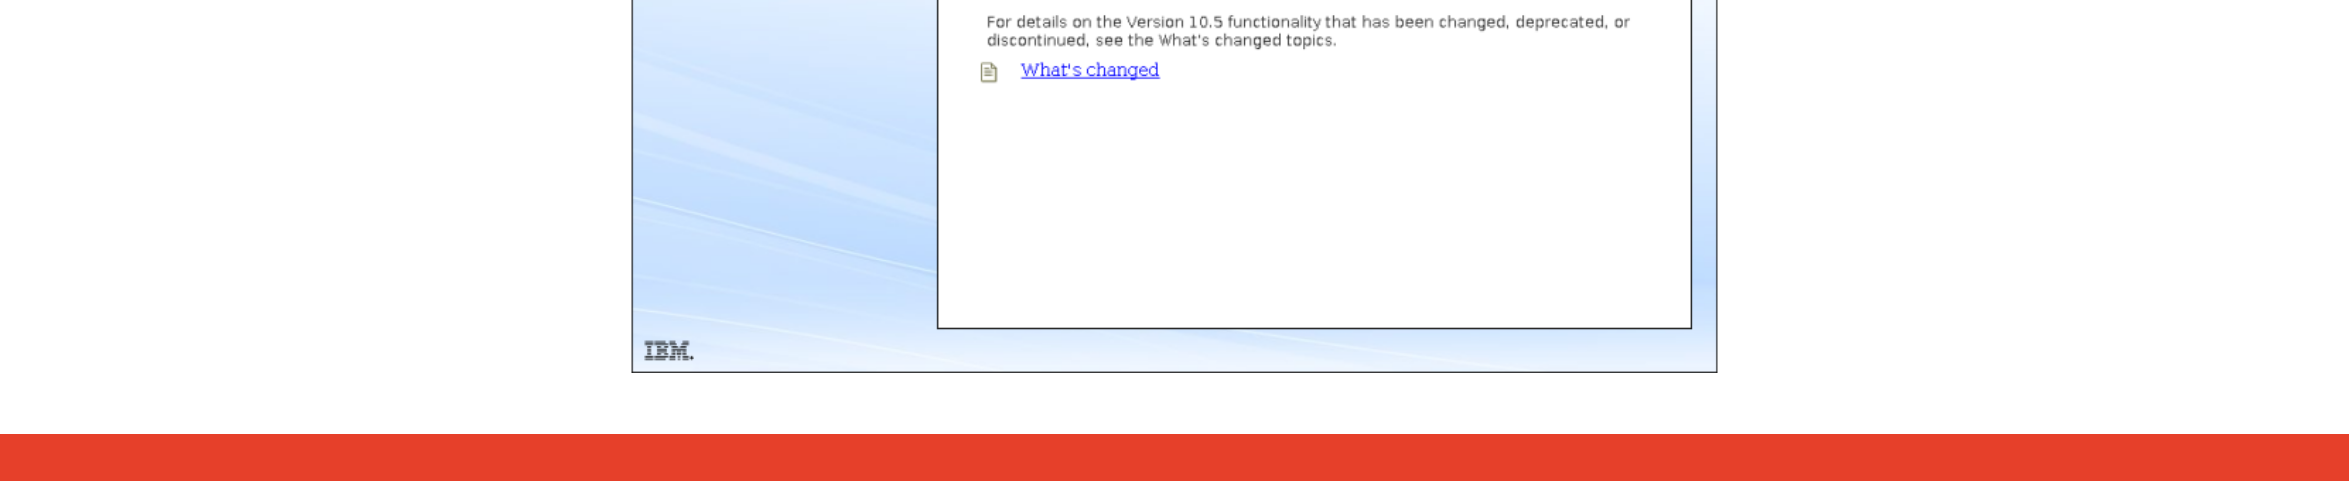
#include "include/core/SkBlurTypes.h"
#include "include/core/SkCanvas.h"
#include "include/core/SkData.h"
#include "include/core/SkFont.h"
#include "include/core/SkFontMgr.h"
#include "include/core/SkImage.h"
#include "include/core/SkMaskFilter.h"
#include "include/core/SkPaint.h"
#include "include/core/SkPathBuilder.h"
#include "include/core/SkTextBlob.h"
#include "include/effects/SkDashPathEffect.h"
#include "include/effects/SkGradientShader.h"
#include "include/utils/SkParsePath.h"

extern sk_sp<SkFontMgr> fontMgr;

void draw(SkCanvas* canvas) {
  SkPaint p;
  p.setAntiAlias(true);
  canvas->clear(SkColorSetRGB(230, 64, 42));
  p.setColor(SK_ColorWHITE);
  canvas->drawRect(SkRect::MakeLTRB(0, 0, 2349, 434), p);
  canvas->drawImageRect(SkImages::DeferredFromEncodedData(SkData::MakeFromFileName("images/1.png")), SkRect::MakeLTRB(631, 0, 1718, 373), SkSamplingOptions());
}
